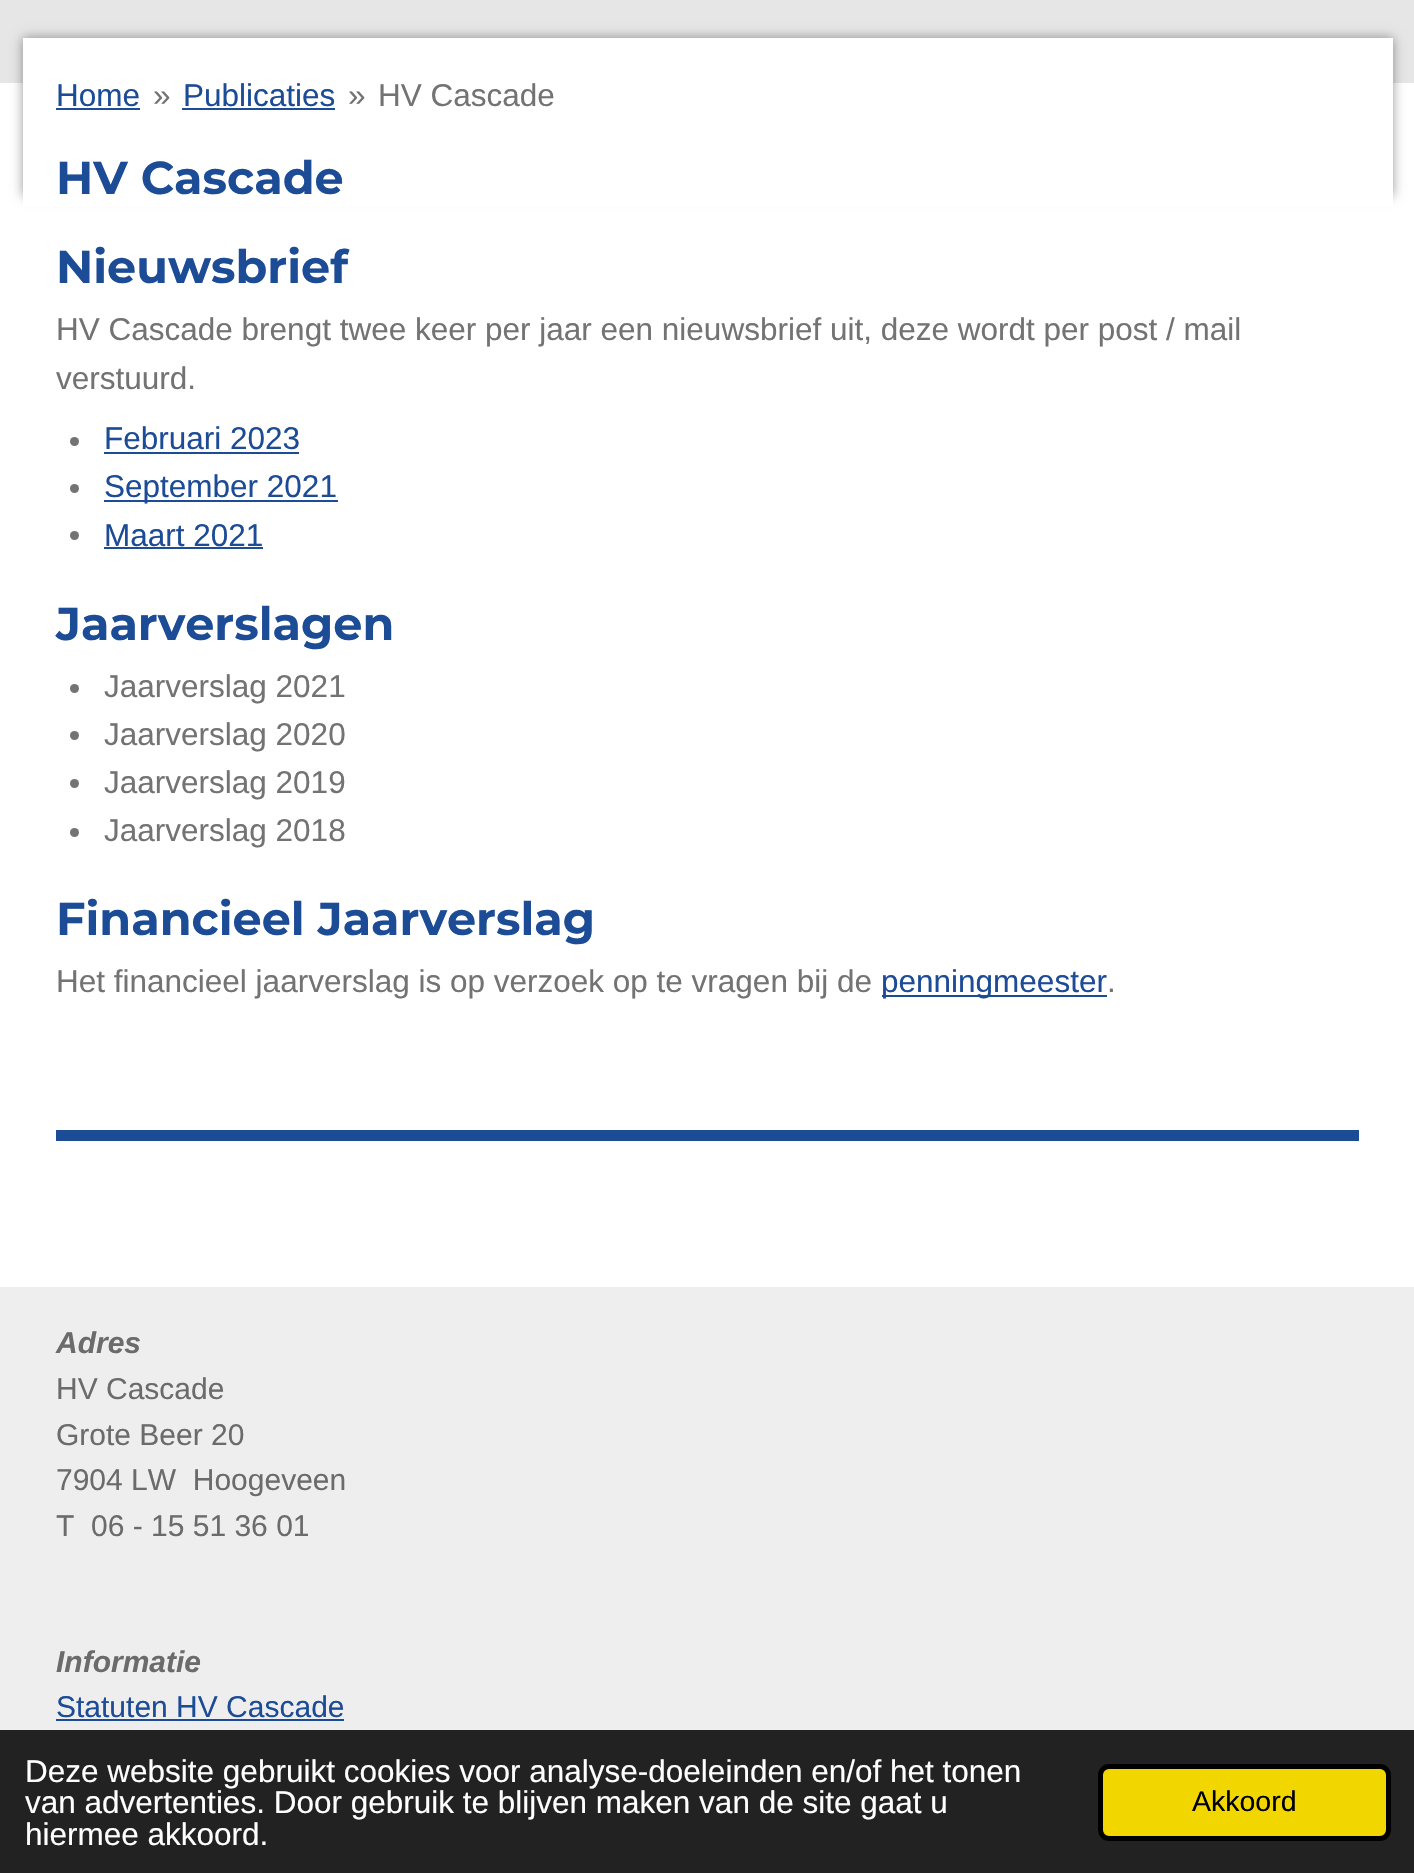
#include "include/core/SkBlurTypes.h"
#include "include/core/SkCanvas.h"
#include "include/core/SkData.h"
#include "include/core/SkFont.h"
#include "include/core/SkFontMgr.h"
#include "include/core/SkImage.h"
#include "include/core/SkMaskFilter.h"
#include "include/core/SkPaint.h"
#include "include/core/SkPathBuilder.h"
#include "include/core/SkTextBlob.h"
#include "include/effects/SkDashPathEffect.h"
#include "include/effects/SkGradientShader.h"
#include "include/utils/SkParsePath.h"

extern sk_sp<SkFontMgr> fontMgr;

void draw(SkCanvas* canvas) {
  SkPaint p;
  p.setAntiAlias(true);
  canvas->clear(SK_ColorWHITE);
  p.setColor(SkColorSetRGB(230, 230, 230));
  canvas->drawRect(SkRect::MakeLTRB(0, 0, 1414, 83), p);
  p.setColor(SkColorSetARGB(102, 0, 0, 0));
  p.setMaskFilter(SkMaskFilter::MakeBlur(kNormal_SkBlurStyle, 5.5f));
  canvas->drawRect(SkRect::MakeLTRB(23, 38, 1393, 196), p);
  p.setMaskFilter(nullptr);
  p.setColor(SK_ColorWHITE);
  canvas->drawRect(SkRect::MakeLTRB(23, 38, 1393, 207), p);
  p.setColor(SkColorSetRGB(29, 76, 150));
  canvas->drawRect(SkRect::MakeLTRB(56, 108, 140, 110), p);
  canvas->drawRect(SkRect::MakeLTRB(182, 108, 335, 110), p);
  p.setColor(SkColorSetRGB(115, 115, 115));
  canvas->drawCircle(74.5f, 441.5f, 4.5f, p);
  p.setColor(SkColorSetRGB(29, 76, 150));
  canvas->drawRect(SkRect::MakeLTRB(104, 452, 299, 454), p);
  p.setColor(SkColorSetRGB(115, 115, 115));
  canvas->drawCircle(74.5f, 488.5f, 4.5f, p);
  p.setColor(SkColorSetRGB(29, 76, 150));
  canvas->drawRect(SkRect::MakeLTRB(104, 500, 338, 502), p);
  p.setColor(SkColorSetRGB(115, 115, 115));
  canvas->drawCircle(74.5f, 535.5f, 4.5f, p);
  p.setColor(SkColorSetRGB(29, 76, 150));
  canvas->drawRect(SkRect::MakeLTRB(104, 547, 263, 549), p);
  p.setColor(SkColorSetRGB(115, 115, 115));
  canvas->drawCircle(74.5f, 688.5f, 4.5f, p);
  canvas->drawCircle(74.5f, 735.5f, 4.5f, p);
  canvas->drawCircle(74.5f, 783.5f, 4.5f, p);
  canvas->drawCircle(74.5f, 832.5f, 4.5f, p);
  p.setColor(SkColorSetRGB(29, 76, 150));
  canvas->drawRect(SkRect::MakeLTRB(882, 995, 1107, 997), p);
  canvas->drawRect(SkRect::MakeLTRB(56, 1130, 1359, 1141), p);
  p.setColor(SkColorSetRGB(238, 238, 238));
  canvas->drawRect(SkRect::MakeLTRB(0, 1287, 1414, 1730), p);
  p.setColor(SkColorSetRGB(29, 76, 150));
  canvas->drawRect(SkRect::MakeLTRB(56, 1719, 344, 1721), p);
  p.setColor(SkColorSetRGB(34, 34, 34));
  canvas->drawRect(SkRect::MakeLTRB(0, 1730, 1414, 1873), p);
  p.setColor(SkColorSetRGB(241, 214, 0));
  canvas->drawRoundRect(SkRect::MakeLTRB(1100.5f, 1766.5f, 1388.5f, 1838.5f), 8.5f, 8.5f, p);
  p.setStyle(SkPaint::kStroke_Style);
  p.setStrokeWidth(5);
  p.setColor(SK_ColorBLACK);
  canvas->drawRoundRect(SkRect::MakeLTRB(1100.5f, 1766.5f, 1388.5f, 1838.5f), 8.5f, 8.5f, p);
  SkFont font1(fontMgr->matchFamilyStyle("Liberation Sans", SkFontStyle::Normal()), 31.5f);
  font1.setSubpixel(true);
  p.setStyle(SkPaint::kFill_Style);
  p.setColor(SkColorSetRGB(29, 76, 150));
  canvas->drawString("Home", 56, 106, font1, p);
  p.setColor(SkColorSetRGB(115, 115, 115));
  canvas->drawString("»", 153, 106, font1, p);
  p.setColor(SkColorSetRGB(29, 76, 150));
  canvas->drawString("Publicaties", 183, 106, font1, p);
  p.setColor(SkColorSetRGB(115, 115, 115));
  canvas->drawString("»", 348, 106, font1, p);
  canvas->drawString("HV Cascade", 378, 106, font1, p);
  SkFont font2(fontMgr->matchFamilyStyle("Montserrat", SkFontStyle::Bold()), 46.1f);
  font2.setSubpixel(true);
  p.setColor(SkColorSetRGB(29, 76, 150));
  canvas->drawString("HV Cascade", 56, 194, font2, p);
  canvas->drawString("Nieuwsbrief", 56, 283, font2, p);
  p.setColor(SkColorSetRGB(115, 115, 115));
  canvas->drawString("HV Cascade brengt twee keer per jaar een nieuwsbrief uit, deze wordt per post / mail", 56, 340, font1, p);
  canvas->drawString("verstuurd.", 56, 389, font1, p);
  p.setColor(SkColorSetRGB(29, 76, 150));
  canvas->drawString("Februari 2023", 104, 449, font1, p);
  canvas->drawString("September 2021", 104, 497, font1, p);
  canvas->drawString("Maart 2021", 104, 546, font1, p);
  canvas->drawString("Jaarverslagen", 56, 640, font2, p);
  p.setColor(SkColorSetRGB(115, 115, 115));
  canvas->drawString("Jaarverslag 2021", 104, 697, font1, p);
  canvas->drawString("Jaarverslag 2020", 104, 745, font1, p);
  canvas->drawString("Jaarverslag 2019", 104, 793, font1, p);
  canvas->drawString("Jaarverslag 2018", 104, 841, font1, p);
  p.setColor(SkColorSetRGB(29, 76, 150));
  canvas->drawString("Financieel Jaarverslag", 56, 935, font2, p);
  p.setColor(SkColorSetRGB(115, 115, 115));
  canvas->drawString("Het financieel jaarverslag is op verzoek op te vragen bij de", 56, 992, font1, p);
  p.setColor(SkColorSetRGB(29, 76, 150));
  canvas->drawString("penningmeester", 881, 992, font1, p);
  p.setColor(SkColorSetRGB(115, 115, 115));
  canvas->drawString(".", 1107, 992, font1, p);
  SkFont font3(fontMgr->matchFamilyStyle("Liberation Sans", SkFontStyle::BoldItalic()), 30);
  font3.setSubpixel(true);
  p.setColor(SkColorSetRGB(107, 107, 107));
  canvas->drawString("Adres", 56, 1353, font3, p);
  SkFont font4(fontMgr->matchFamilyStyle("Liberation Sans", SkFontStyle::Normal()), 30);
  font4.setSubpixel(true);
  canvas->drawString("HV Cascade", 56, 1399, font4, p);
  canvas->drawString("Grote Beer 20", 56, 1445, font4, p);
  canvas->drawString("7904 LW  Hoogeveen", 56, 1490, font4, p);
  canvas->drawString("T  06 - 15 51 36 01", 56, 1536, font4, p);
  canvas->drawString("Informatie", 56, 1672, font3, p);
  p.setColor(SkColorSetRGB(29, 76, 150));
  canvas->drawString("Statuten HV Cascade", 56, 1717, font4, p);
  p.setColor(SK_ColorWHITE);
  canvas->drawString("Deze website gebruikt cookies voor analyse-doeleinden en/of het tonen", 25, 1782, font1, p);
  canvas->drawString("van advertenties. Door gebruik te blijven maken van de site gaat u", 25, 1813, font1, p);
  canvas->drawString("hiermee akkoord.", 25, 1845, font1, p);
  SkFont font5(fontMgr->matchFamilyStyle("Liberation Sans", SkFontStyle::Normal()), 28.5f);
  font5.setSubpixel(true);
  p.setColor(SK_ColorBLACK);
  canvas->drawString("Akkoord", 1192, 1811, font5, p);
}
